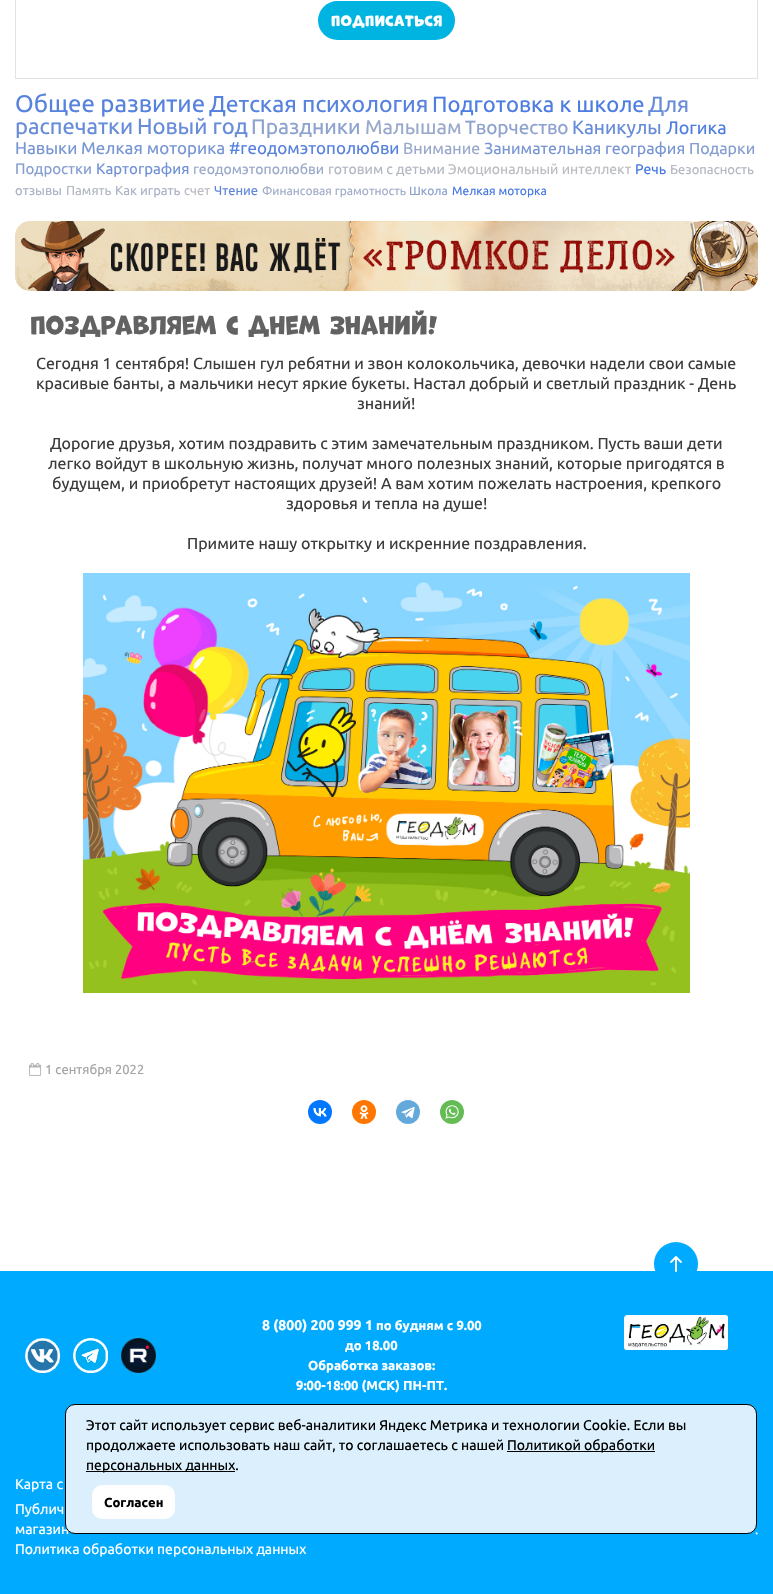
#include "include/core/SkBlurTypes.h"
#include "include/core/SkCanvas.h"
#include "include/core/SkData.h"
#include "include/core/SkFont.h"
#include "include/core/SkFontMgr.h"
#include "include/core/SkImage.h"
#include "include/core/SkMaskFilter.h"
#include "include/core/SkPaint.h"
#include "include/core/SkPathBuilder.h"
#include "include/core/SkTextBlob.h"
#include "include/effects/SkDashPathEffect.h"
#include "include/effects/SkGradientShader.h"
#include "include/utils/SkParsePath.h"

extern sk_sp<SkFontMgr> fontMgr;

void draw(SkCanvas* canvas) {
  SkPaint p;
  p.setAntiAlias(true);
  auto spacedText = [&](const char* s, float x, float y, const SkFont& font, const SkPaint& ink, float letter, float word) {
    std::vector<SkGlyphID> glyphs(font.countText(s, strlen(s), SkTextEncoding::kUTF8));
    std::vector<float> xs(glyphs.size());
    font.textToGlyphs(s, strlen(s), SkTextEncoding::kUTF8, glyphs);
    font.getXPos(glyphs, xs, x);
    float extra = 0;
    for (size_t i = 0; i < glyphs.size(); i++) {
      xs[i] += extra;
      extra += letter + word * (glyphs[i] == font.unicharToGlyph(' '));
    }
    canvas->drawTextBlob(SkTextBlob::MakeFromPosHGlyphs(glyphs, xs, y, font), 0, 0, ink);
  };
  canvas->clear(SK_ColorWHITE);
  p.setStyle(SkPaint::kStroke_Style);
  p.setStrokeWidth(1);
  p.setColor(SkColorSetRGB(227, 227, 227));
  canvas->drawRect(SkRect::MakeLTRB(15.5f, -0.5f, 757.5f, 78.5f), p);
  p.setStyle(SkPaint::kFill_Style);
  p.setColor(SkColorSetRGB(0, 180, 225));
  canvas->drawRoundRect(SkRect::MakeLTRB(318, 1, 455, 40), 19.5f, 19.5f, p);
  canvas->drawImageRect(SkImages::DeferredFromEncodedData(SkData::MakeFromFileName("images/1.png")), SkRect::MakeLTRB(15, 221, 758, 291), SkSamplingOptions());
  canvas->drawImageRect(SkImages::DeferredFromEncodedData(SkData::MakeFromFileName("images/2.png")), SkRect::MakeLTRB(83, 573, 690, 993), SkSamplingOptions());
  canvas->drawImageRect(SkImages::DeferredFromEncodedData(SkData::MakeFromFileName("images/3.png")), SkRect::MakeLTRB(29, 1062, 42, 1076), SkSamplingOptions());
  p.setColor(SkColorSetRGB(0, 119, 255));
  canvas->drawCircle(320, 1112, 12, p);
  canvas->drawImageRect(SkImages::DeferredFromEncodedData(SkData::MakeFromFileName("images/4.png")), SkRect::MakeLTRB(313, 1108, 327, 1117), SkSamplingOptions());
  p.setColor(SkColorSetRGB(255, 119, 0));
  canvas->drawCircle(364, 1112, 12, p);
  canvas->drawImageRect(SkImages::DeferredFromEncodedData(SkData::MakeFromFileName("images/5.png")), SkRect::MakeLTRB(359, 1105, 369, 1119), SkSamplingOptions());
  p.setColor(SkColorSetRGB(100, 169, 220));
  canvas->drawCircle(408, 1112, 12, p);
  canvas->drawImageRect(SkImages::DeferredFromEncodedData(SkData::MakeFromFileName("images/6.png")), SkRect::MakeLTRB(401, 1107, 415, 1119), SkSamplingOptions());
  p.setColor(SkColorSetRGB(101, 188, 84));
  canvas->drawCircle(452, 1112, 12, p);
  canvas->drawImageRect(SkImages::DeferredFromEncodedData(SkData::MakeFromFileName("images/7.png")), SkRect::MakeLTRB(445, 1105, 459, 1119), SkSamplingOptions());
  p.setColor(SkColorSetRGB(0, 170, 255));
  canvas->drawRect(SkRect::MakeLTRB(0, 1271, 773, 1594), p);
  canvas->drawCircle(676, 1264, 22, p);
  canvas->drawImageRect(SkImages::DeferredFromEncodedData(SkData::MakeFromFileName("images/8.png")), SkRect::MakeLTRB(670, 1256, 682, 1272), SkSamplingOptions());
  canvas->drawImageRect(SkImages::DeferredFromEncodedData(SkData::MakeFromFileName("images/9.png")), SkRect::MakeLTRB(25, 1338, 60, 1373), SkSamplingOptions());
  canvas->drawImageRect(SkImages::DeferredFromEncodedData(SkData::MakeFromFileName("images/10.png")), SkRect::MakeLTRB(73, 1338, 108, 1373), SkSamplingOptions());
  canvas->drawImageRect(SkImages::DeferredFromEncodedData(SkData::MakeFromFileName("images/11.png")), SkRect::MakeLTRB(121, 1338, 156, 1373), SkSamplingOptions());
  canvas->drawImageRect(SkImages::DeferredFromEncodedData(SkData::MakeFromFileName("images/12.png")), SkRect::MakeLTRB(624, 1315, 728, 1350), SkSamplingOptions());
  SkFont font1(fontMgr->matchFamilyStyle("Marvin", SkFontStyle(500, SkFontStyle::kNormal_Width, SkFontStyle::kUpright_Slant)), 14);
  font1.setSubpixel(true);
  p.setColor(SK_ColorWHITE);
  spacedText("ПОДПИСАТЬСЯ", 331, 26, font1, p, 0.4f, 0);
  SkFont font2(fontMgr->matchFamilyStyle("Ubuntu", SkFontStyle::Normal()), 24);
  font2.setSubpixel(true);
  p.setColor(SkColorSetRGB(87, 130, 222));
  canvas->drawString("Общее развитие", 15, 112, font2, p);
  SkFont font3(fontMgr->matchFamilyStyle("Ubuntu", SkFontStyle::Normal()), 23);
  font3.setSubpixel(true);
  canvas->drawString("Детская психология", 209, 112, font3, p);
  SkFont font4(fontMgr->matchFamilyStyle("Ubuntu", SkFontStyle::Normal()), 22);
  font4.setSubpixel(true);
  p.setColor(SkColorSetRGB(78, 125, 225));
  canvas->drawString("Подготовка к школе", 432, 112, font4, p);
  p.setColor(SkColorSetRGB(103, 140, 217));
  canvas->drawString("Для", 648, 112, font4, p);
  canvas->drawString("распечатки", 15, 134, font4, p);
  canvas->drawString("Новый год", 137, 134, font4, p);
  SkFont font5(fontMgr->matchFamilyStyle("Ubuntu", SkFontStyle::Normal()), 21);
  font5.setSubpixel(true);
  p.setColor(SkColorSetRGB(141, 162, 206));
  canvas->drawString("Праздники", 251, 134, font5, p);
  SkFont font6(fontMgr->matchFamilyStyle("Ubuntu", SkFontStyle::Normal()), 20);
  font6.setSubpixel(true);
  p.setColor(SkColorSetRGB(154, 169, 203));
  canvas->drawString("Малышам", 365, 134, font6, p);
  SkFont font7(fontMgr->matchFamilyStyle("Ubuntu", SkFontStyle::Normal()), 19);
  font7.setSubpixel(true);
  p.setColor(SkColorSetRGB(141, 162, 206));
  canvas->drawString("Творчество", 465, 134, font7, p);
  p.setColor(SkColorSetRGB(103, 140, 217));
  canvas->drawString("Каникулы", 572, 134, font7, p);
  SkFont font8(fontMgr->matchFamilyStyle("Ubuntu", SkFontStyle::Normal()), 18);
  font8.setSubpixel(true);
  p.setColor(SkColorSetRGB(78, 125, 225));
  canvas->drawString("Логика", 666, 134, font8, p);
  SkFont font9(fontMgr->matchFamilyStyle("Ubuntu", SkFontStyle::Normal()), 17);
  font9.setSubpixel(true);
  p.setColor(SkColorSetRGB(120, 150, 212));
  canvas->drawString("Навыки", 15, 154, font9, p);
  canvas->drawString("Мелкая моторика", 81, 154, font9, p);
  p.setColor(SkColorSetRGB(87, 130, 222));
  canvas->drawString("#геодомэтополюбви", 229, 154, font9, p);
  SkFont font10(fontMgr->matchFamilyStyle("Ubuntu", SkFontStyle::Normal()), 16);
  font10.setSubpixel(true);
  p.setColor(SkColorSetRGB(154, 169, 203));
  canvas->drawString("Внимание", 403, 154, font10, p);
  p.setColor(SkColorSetRGB(120, 150, 212));
  canvas->drawString("Занимательная география", 484, 154, font10, p);
  p.setColor(SkColorSetRGB(133, 157, 209));
  canvas->drawString("Подарки", 689, 154, font10, p);
  SkFont font11(fontMgr->matchFamilyStyle("Ubuntu", SkFontStyle::Normal()), 15);
  font11.setSubpixel(true);
  canvas->drawString("Подростки", 15, 174, font11, p);
  p.setColor(SkColorSetRGB(112, 145, 215));
  canvas->drawString("Картография", 96, 174, font11, p);
  SkFont font12(fontMgr->matchFamilyStyle("Ubuntu", SkFontStyle::Normal()), 14);
  font12.setSubpixel(true);
  p.setColor(SkColorSetRGB(154, 169, 203));
  canvas->drawString("геодомэтополюбви", 193, 174, font12, p);
  p.setColor(SkColorSetRGB(179, 184, 195));
  canvas->drawString("готовим с детьми", 328, 174, font12, p);
  p.setColor(SkColorSetRGB(187, 189, 193));
  canvas->drawString("Эмоциональный интеллект", 448, 174, font12, p);
  p.setColor(SkColorSetRGB(70, 120, 227));
  canvas->drawString("Речь", 635, 174, font12, p);
  SkFont font13(fontMgr->matchFamilyStyle("Ubuntu", SkFontStyle::Normal()), 13);
  font13.setSubpixel(true);
  p.setColor(SkColorSetRGB(179, 184, 195));
  canvas->drawString("Безопасность", 670, 174, font13, p);
  p.setColor(SkColorSetRGB(171, 179, 198));
  canvas->drawString("отзывы", 15, 195, font13, p);
  p.setColor(SkColorSetRGB(179, 184, 195));
  canvas->drawString("Память", 66, 195, font13, p);
  p.setColor(SkColorSetRGB(171, 179, 198));
  canvas->drawString("Как играть", 115, 195, font13, p);
  p.setColor(SkColorSetRGB(187, 189, 193));
  canvas->drawString("счет", 184, 195, font13, p);
  p.setColor(SkColorSetRGB(95, 135, 220));
  canvas->drawString("Чтение", 214, 195, font13, p);
  SkFont font14(fontMgr->matchFamilyStyle("Ubuntu", SkFontStyle::Normal()), 12);
  font14.setSubpixel(true);
  p.setColor(SkColorSetRGB(162, 174, 200));
  canvas->drawString("Финансовая грамотность", 262, 195, font14, p);
  p.setColor(SkColorSetRGB(141, 162, 206));
  canvas->drawString("Школа", 409, 195, font14, p);
  p.setColor(SkColorSetRGB(70, 120, 227));
  canvas->drawString("Мелкая моторка", 452, 195, font14, p);
  SkFont font15(fontMgr->matchFamilyStyle("Marvin", SkFontStyle::Normal()), 24);
  font15.setSubpixel(true);
  p.setColor(SkColorSetRGB(99, 98, 98));
  canvas->drawString("Поздравляем с Днем знаний!", 30, 334, font15, p);
  p.setColor(SkColorSetRGB(60, 60, 60));
  canvas->drawString("Сегодня 1 сентября! Слышен гул ребятни и звон колокольчика, девочки надели свои самые", 36, 369, font10, p);
  canvas->drawString("красивые банты, а мальчики несут яркие букеты. Настал добрый и светлый праздник - День", 36, 389, font10, p);
  canvas->drawString("знаний!", 357, 409, font10, p);
  canvas->drawString("Дорогие друзья, хотим поздравить с этим замечательным праздником. Пусть ваши дети", 50, 449, font10, p);
  canvas->drawString("легко войдут в школьную жизнь, получат много полезных знаний, которые пригодятся в", 48, 469, font10, p);
  canvas->drawString("будущем, и приобретут настоящих друзей! А вам хотим пожелать настроения, крепкого", 52, 489, font10, p);
  canvas->drawString("здоровья и тепла на душе!", 286, 509, font10, p);
  canvas->drawString("Примите нашу открытку и искренние поздравления.", 187, 549, font10, p);
  p.setColor(SkColorSetRGB(164, 164, 164));
  canvas->drawString("1 сентября 2022", 45, 1074, font13, p);
  SkFont font16(fontMgr->matchFamilyStyle("Ubuntu", SkFontStyle::Bold()), 14);
  font16.setSubpixel(true);
  p.setColor(SK_ColorWHITE);
  canvas->drawString("8 (800) 200 999 1", 262, 1330, font16, p);
  SkFont font17(fontMgr->matchFamilyStyle("Ubuntu", SkFontStyle::Bold()), 13);
  font17.setSubpixel(true);
  canvas->drawString("по будням с 9.00", 376, 1330, font17, p);
  canvas->drawString("до 18.00", 345, 1350, font17, p);
  canvas->drawString("Обработка заказов:", 308, 1370, font17, p);
  canvas->drawString("9:00-18:00 (МСК) ПН-ПТ.", 296, 1390, font17, p);
  canvas->drawString("Карта с", 15, 1489, font12, p);
  canvas->drawString("Публич", 15, 1514, font12, p);
  canvas->drawString("магазин", 15, 1534, font12, p);
  canvas->drawString("Политика обработки персональных данных", 15, 1554, font12, p);
  canvas->drawString(".", 755, 1534, font13, p);
  p.setColor(SkColorSetRGB(219, 239, 252));
  canvas->drawRoundRect(SkRect::MakeLTRB(65.5f, 1404.5f, 756.5f, 1533.5f), 9.5f, 9.5f, p);
  p.setStyle(SkPaint::kStroke_Style);
  p.setColor(SK_ColorBLACK);
  canvas->drawRoundRect(SkRect::MakeLTRB(65.5f, 1404.5f, 756.5f, 1533.5f), 9.5f, 9.5f, p);
  p.setStyle(SkPaint::kFill_Style);
  canvas->drawString("Этот сайт использует сервис веб-аналитики Яндекс Метрика и технологии Cookie. Если вы", 86, 1430, font12, p);
  canvas->drawString("продолжаете использовать наш сайт, то соглашаетесь с нашей", 86, 1450, font12, p);
  canvas->drawRect(SkRect::MakeLTRB(507, 1451, 655, 1452), p);
  canvas->drawString("Политикой обработки", 507, 1450, font12, p);
  canvas->drawRect(SkRect::MakeLTRB(86, 1471, 235, 1472), p);
  canvas->drawString("персональных данных.", 86, 1470, font12, p);
  p.setColor(SK_ColorWHITE);
  canvas->drawRoundRect(SkRect::MakeLTRB(92, 1485, 175, 1519), 10, 10, p);
  p.setColor(SK_ColorBLACK);
  canvas->drawString("Согласен", 104, 1507, font17, p);
}
